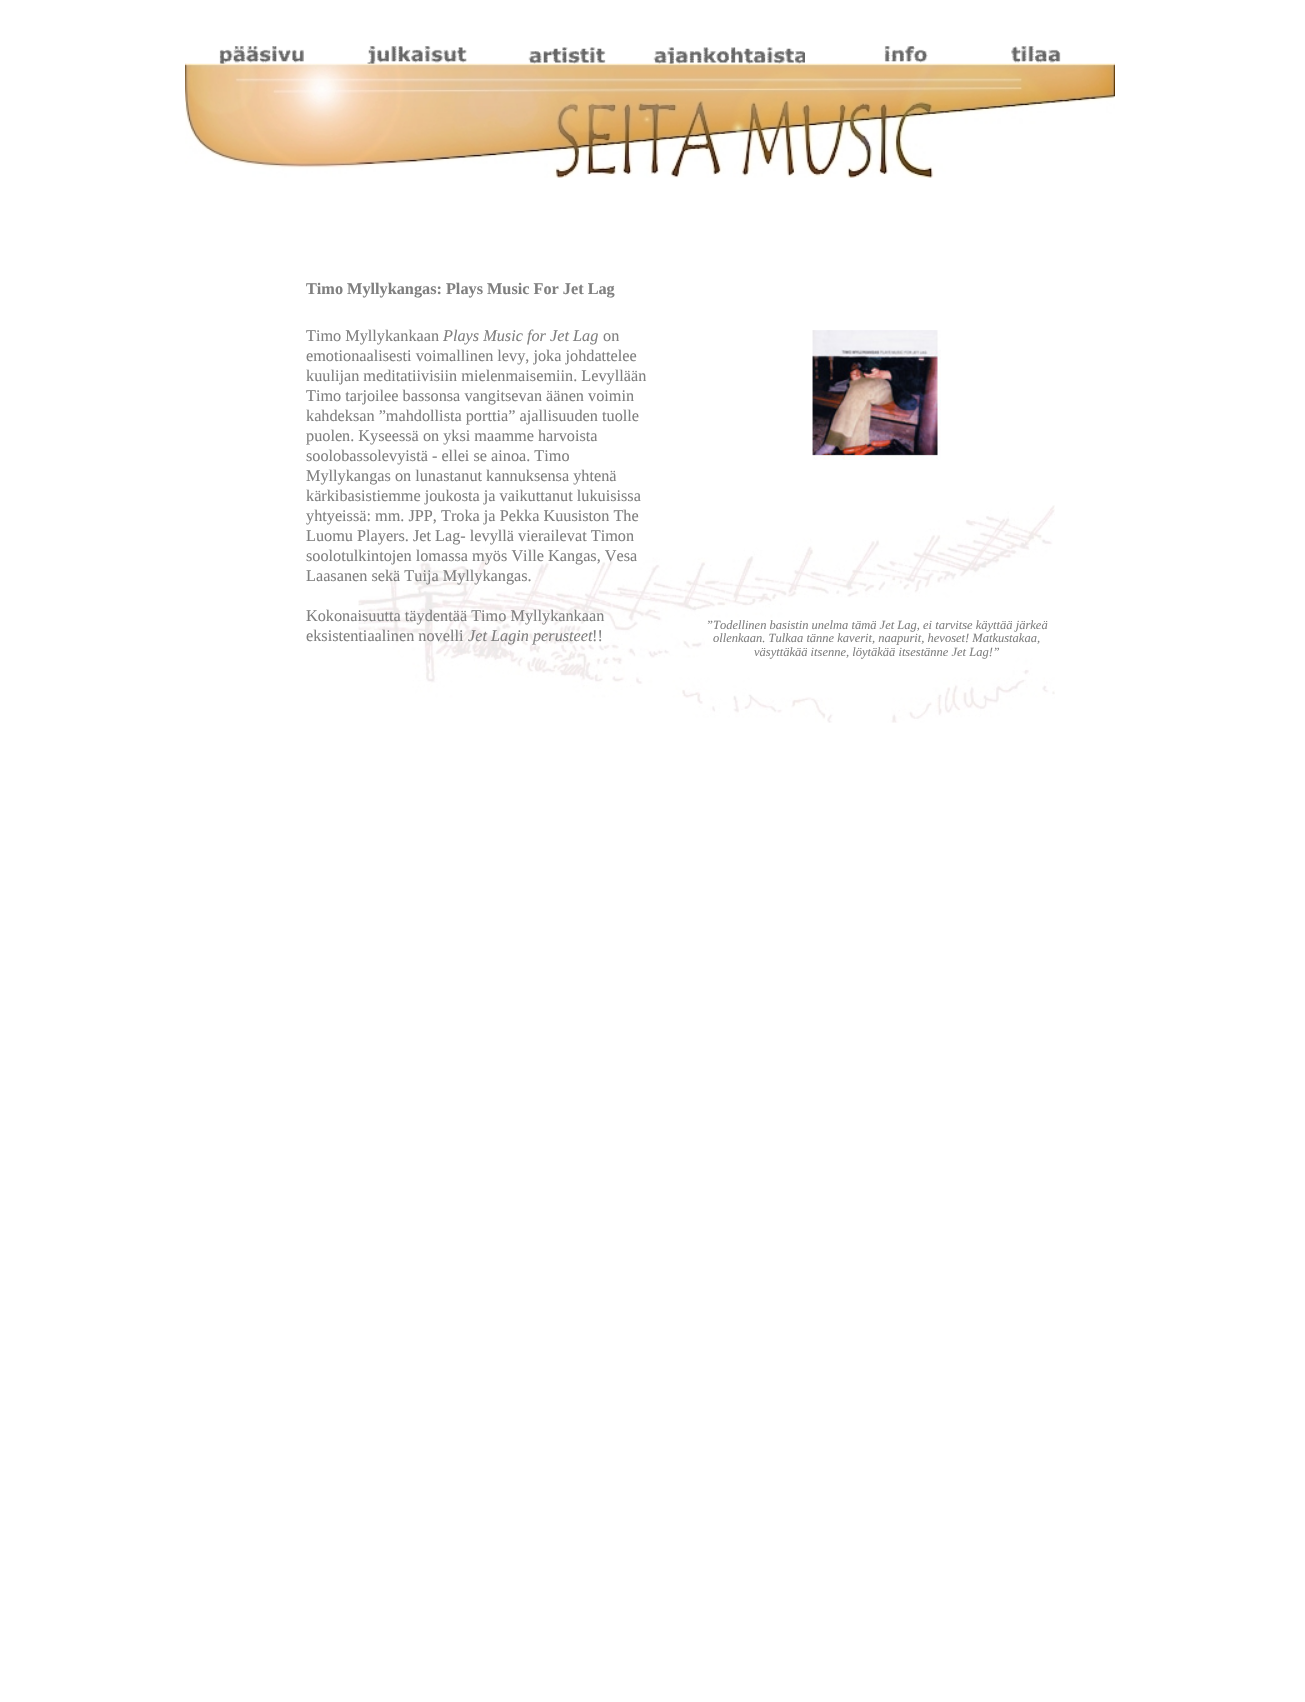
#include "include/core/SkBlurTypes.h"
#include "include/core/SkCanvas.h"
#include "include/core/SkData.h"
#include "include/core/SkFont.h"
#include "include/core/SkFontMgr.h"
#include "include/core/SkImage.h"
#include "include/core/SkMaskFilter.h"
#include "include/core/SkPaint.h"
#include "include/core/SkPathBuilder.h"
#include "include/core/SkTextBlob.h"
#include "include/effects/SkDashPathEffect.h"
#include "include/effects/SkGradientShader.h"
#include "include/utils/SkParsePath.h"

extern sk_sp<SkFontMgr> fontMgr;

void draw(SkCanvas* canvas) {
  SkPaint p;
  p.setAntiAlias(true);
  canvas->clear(SK_ColorWHITE);
  canvas->drawImageRect(SkImages::DeferredFromEncodedData(SkData::MakeFromFileName("images/1.png")), SkRect::MakeLTRB(219, 46, 304, 64), SkSamplingOptions());
  canvas->drawImageRect(SkImages::DeferredFromEncodedData(SkData::MakeFromFileName("images/2.png")), SkRect::MakeLTRB(367, 46, 467, 64), SkSamplingOptions());
  canvas->drawImageRect(SkImages::DeferredFromEncodedData(SkData::MakeFromFileName("images/3.png")), SkRect::MakeLTRB(528, 47, 606, 64), SkSamplingOptions());
  canvas->drawImageRect(SkImages::DeferredFromEncodedData(SkData::MakeFromFileName("images/4.png")), SkRect::MakeLTRB(653, 47, 805, 64), SkSamplingOptions());
  canvas->drawImageRect(SkImages::DeferredFromEncodedData(SkData::MakeFromFileName("images/5.png")), SkRect::MakeLTRB(884, 46, 928, 63), SkSamplingOptions());
  canvas->drawImageRect(SkImages::DeferredFromEncodedData(SkData::MakeFromFileName("images/6.png")), SkRect::MakeLTRB(1011, 46, 1061, 63), SkSamplingOptions());
  canvas->drawImageRect(SkImages::DeferredFromEncodedData(SkData::MakeFromFileName("images/7.png")), SkRect::MakeLTRB(185, 63, 1115, 178), SkSamplingOptions());
  canvas->drawImageRect(SkImages::DeferredFromEncodedData(SkData::MakeFromFileName("images/8.png")), SkRect::MakeLTRB(358, 505, 1055, 723), SkSamplingOptions());
  canvas->drawImageRect(SkImages::DeferredFromEncodedData(SkData::MakeFromFileName("images/9.png")), SkRect::MakeLTRB(812, 330, 941, 460), SkSamplingOptions());
  SkFont font1(fontMgr->matchFamilyStyle("Liberation Serif", SkFontStyle::Bold()), 16.25f);
  font1.setSubpixel(true);
  p.setColor(SkColorSetRGB(128, 128, 128));
  canvas->drawString("Timo Myllykangas: Plays Music For Jet Lag", 306, 294, font1, p);
  SkFont font2(fontMgr->matchFamilyStyle("Liberation Serif", SkFontStyle::Normal()), 16.25f);
  font2.setSubpixel(true);
  canvas->drawString("Timo Myllykankaan", 306, 341, font2, p);
  SkFont font3(fontMgr->matchFamilyStyle("Liberation Serif", SkFontStyle::Italic()), 16.25f);
  font3.setSubpixel(true);
  canvas->drawString("Plays Music for Jet Lag", 443, 341, font3, p);
  canvas->drawString("on", 603, 341, font2, p);
  canvas->drawString("emotionaalisesti voimallinen levy, joka johdattelee", 306, 361, font2, p);
  canvas->drawString("kuulijan meditatiivisiin mielenmaisemiin. Levyllään", 306, 381, font2, p);
  canvas->drawString("Timo tarjoilee bassonsa vangitsevan äänen voimin", 306, 401, font2, p);
  canvas->drawString("kahdeksan ”mahdollista porttia” ajallisuuden tuolle", 306, 421, font2, p);
  canvas->drawString("puolen. Kyseessä on yksi maamme harvoista", 306, 441, font2, p);
  canvas->drawString("soolobassolevyistä - ellei se ainoa. Timo", 306, 461, font2, p);
  canvas->drawString("Myllykangas on lunastanut kannuksensa yhtenä", 306, 481, font2, p);
  canvas->drawString("kärkibasistiemme joukosta ja vaikuttanut lukuisissa", 306, 501, font2, p);
  canvas->drawString("yhtyeissä: mm. JPP, Troka ja Pekka Kuusiston The", 306, 521, font2, p);
  canvas->drawString("Luomu Players. Jet Lag- levyllä vierailevat Timon", 306, 541, font2, p);
  canvas->drawString("soolotulkintojen lomassa myös Ville Kangas, Vesa", 306, 561, font2, p);
  canvas->drawString("Laasanen sekä Tuija Myllykangas.", 306, 581, font2, p);
  canvas->drawString("Kokonaisuutta täydentää Timo Myllykankaan", 306, 621, font2, p);
  canvas->drawString("eksistentiaalinen novelli", 306, 641, font2, p);
  canvas->drawString("Jet Lagin perusteet", 468, 641, font3, p);
  canvas->drawString("!!", 592, 641, font2, p);
  SkFont font4(fontMgr->matchFamilyStyle("Liberation Serif", SkFontStyle::Italic()), 12.5f);
  font4.setSubpixel(true);
  canvas->drawString("”Todellinen basistin unelma tämä Jet Lag, ei tarvitse käyttää järkeä", 706, 629, font4, p);
  canvas->drawString("ollenkaan. Tulkaa tänne kaverit, naapurit, hevoset! Matkustakaa,", 713, 642, font4, p);
  canvas->drawString("väsyttäkää itsenne, löytäkää itsestänne Jet Lag!”", 754, 656, font4, p);
}
